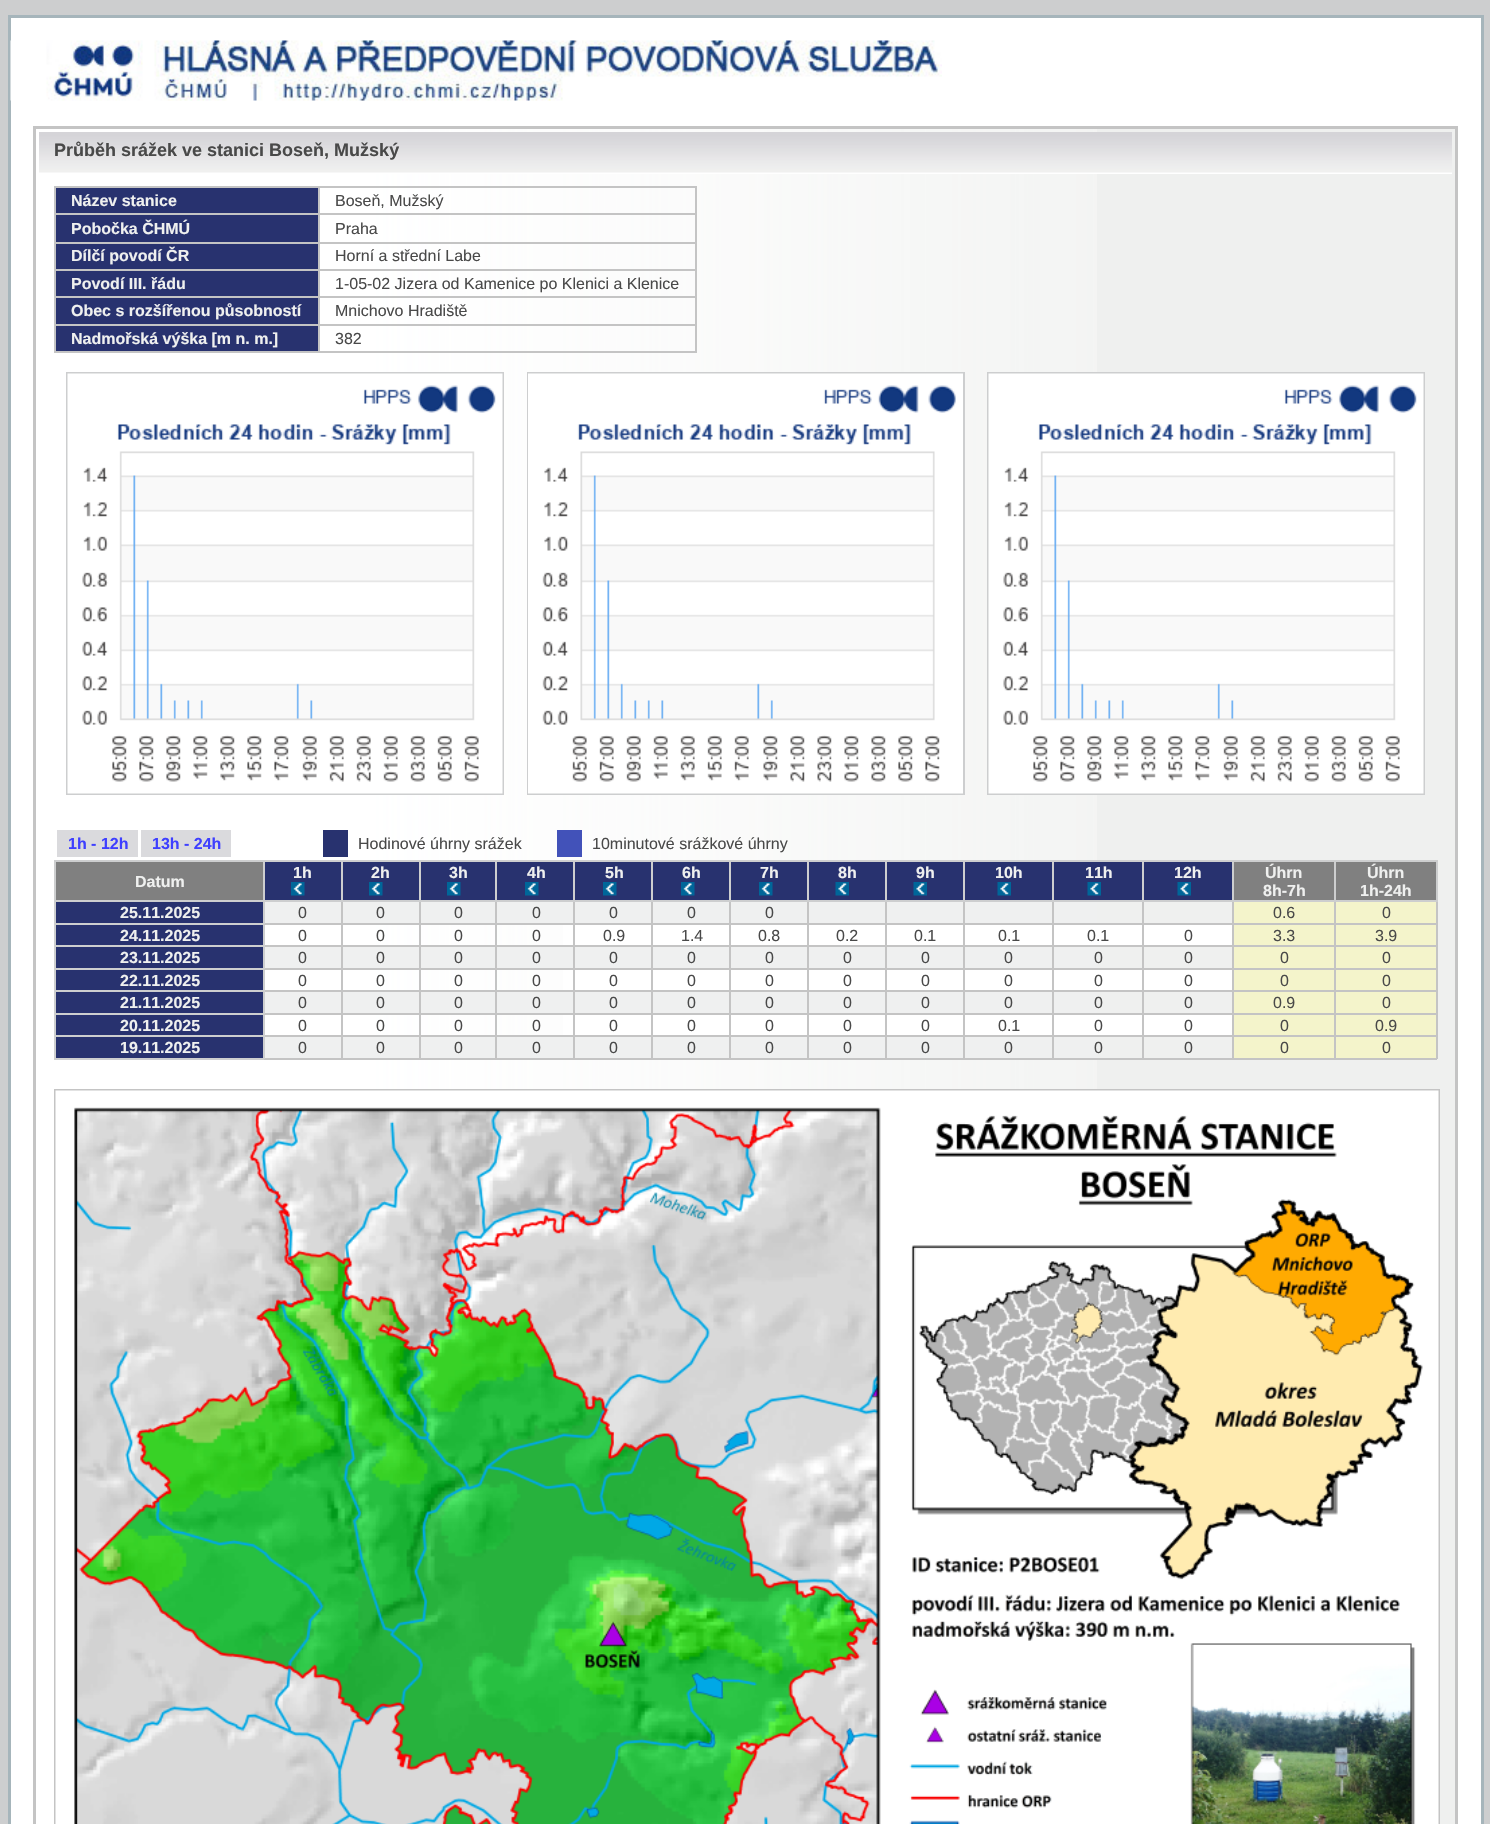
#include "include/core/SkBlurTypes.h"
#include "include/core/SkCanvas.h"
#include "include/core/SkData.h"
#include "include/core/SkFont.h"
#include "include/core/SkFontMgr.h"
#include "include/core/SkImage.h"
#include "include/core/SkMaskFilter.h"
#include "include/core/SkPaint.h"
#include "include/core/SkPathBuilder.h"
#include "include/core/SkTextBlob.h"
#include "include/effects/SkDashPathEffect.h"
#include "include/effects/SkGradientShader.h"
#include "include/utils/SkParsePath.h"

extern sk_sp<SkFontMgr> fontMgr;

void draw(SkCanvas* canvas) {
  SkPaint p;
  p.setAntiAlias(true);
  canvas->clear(SkColorSetRGB(205, 206, 207));
  p.setColor(SK_ColorWHITE);
  canvas->drawRect(SkRect::MakeLTRB(9.5f, 16.5f, 1482.5f, 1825.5f), p);
  p.setStyle(SkPaint::kStroke_Style);
  p.setStrokeWidth(3);
  p.setColor(SkColorSetRGB(166, 181, 187));
  canvas->drawRect(SkRect::MakeLTRB(9.5f, 16.5f, 1482.5f, 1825.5f), p);
  canvas->drawImageRect(SkImages::DeferredFromEncodedData(SkData::MakeFromFileName("images/1.png")), SkRect::MakeLTRB(10, 40, 942, 101), SkSamplingOptions());
  p.setStyle(SkPaint::kFill_Style);
  p.setColor(SkColorSetRGB(239, 240, 239));
  canvas->drawRect(SkRect::MakeLTRB(1097, 129, 1455, 1824), p);
  canvas->drawImageRect(SkImages::DeferredFromEncodedData(SkData::MakeFromFileName("images/2.png")), SkRect::MakeLTRB(36, 129, 1097, 1824), SkSamplingOptions());
  p.setStyle(SkPaint::kStroke_Style);
  p.setColor(SkColorSetRGB(196, 196, 196));
  canvas->drawRect(SkRect::MakeLTRB(34.5f, 127.5f, 1456.5f, 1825.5f), p);
  canvas->drawImageRect(SkImages::DeferredFromEncodedData(SkData::MakeFromFileName("images/3.png")), SkRect::MakeLTRB(39, 132, 1452, 174), SkSamplingOptions());
  p.setStyle(SkPaint::kFill_Style);
  canvas->drawRect(SkRect::MakeLTRB(54, 186, 696, 188), p);
  canvas->drawRect(SkRect::MakeLTRB(695, 186, 697, 353), p);
  canvas->drawRect(SkRect::MakeLTRB(54, 351, 696, 353), p);
  canvas->drawRect(SkRect::MakeLTRB(54, 186, 56, 353), p);
  p.setColor(SkColorSetRGB(40, 50, 111));
  canvas->drawRect(SkRect::MakeLTRB(56, 188, 318, 213), p);
  p.setColor(SkColorSetRGB(196, 196, 196));
  canvas->drawRect(SkRect::MakeLTRB(318, 213, 696, 215), p);
  canvas->drawRect(SkRect::MakeLTRB(318, 242, 696, 244), p);
  canvas->drawRect(SkRect::MakeLTRB(318, 269, 696, 271), p);
  canvas->drawRect(SkRect::MakeLTRB(318, 296, 696, 298), p);
  canvas->drawRect(SkRect::MakeLTRB(318, 324, 696, 326), p);
  canvas->drawRect(SkRect::MakeLTRB(318, 324, 320, 353), p);
  canvas->drawRect(SkRect::MakeLTRB(54, 324, 320, 326), p);
  canvas->drawRect(SkRect::MakeLTRB(318, 296, 320, 326), p);
  canvas->drawRect(SkRect::MakeLTRB(54, 296, 320, 298), p);
  canvas->drawRect(SkRect::MakeLTRB(318, 269, 320, 297), p);
  canvas->drawRect(SkRect::MakeLTRB(54, 269, 320, 271), p);
  canvas->drawRect(SkRect::MakeLTRB(318, 242, 320, 270), p);
  canvas->drawRect(SkRect::MakeLTRB(54, 242, 320, 244), p);
  canvas->drawRect(SkRect::MakeLTRB(318, 213, 320, 243), p);
  canvas->drawRect(SkRect::MakeLTRB(54, 213, 320, 215), p);
  canvas->drawRect(SkRect::MakeLTRB(318, 186, 320, 215), p);
  p.setColor(SkColorSetRGB(40, 50, 111));
  canvas->drawRect(SkRect::MakeLTRB(56, 215, 318, 242), p);
  canvas->drawRect(SkRect::MakeLTRB(56, 244, 318, 269), p);
  canvas->drawRect(SkRect::MakeLTRB(56, 271, 318, 296), p);
  canvas->drawRect(SkRect::MakeLTRB(56, 298, 318, 324), p);
  canvas->drawRect(SkRect::MakeLTRB(56, 326, 318, 351), p);
  p.setStyle(SkPaint::kStroke_Style);
  p.setStrokeWidth(2);
  p.setColor(SkColorSetRGB(205, 206, 207));
  canvas->drawRect(SkRect::MakeLTRB(67, 373, 503, 794), p);
  canvas->drawImageRect(SkImages::DeferredFromEncodedData(SkData::MakeFromFileName("images/4.png")), SkRect::MakeLTRB(67, 373, 503, 794), SkSamplingOptions());
  canvas->drawRect(SkRect::MakeLTRB(528, 373, 964, 794), p);
  canvas->drawImageRect(SkImages::DeferredFromEncodedData(SkData::MakeFromFileName("images/5.png")), SkRect::MakeLTRB(528, 373, 963, 794), SkSamplingOptions());
  canvas->drawRect(SkRect::MakeLTRB(988, 373, 1424, 794), p);
  canvas->drawImageRect(SkImages::DeferredFromEncodedData(SkData::MakeFromFileName("images/4.png")), SkRect::MakeLTRB(988, 373, 1424, 794), SkSamplingOptions());
  p.setStyle(SkPaint::kFill_Style);
  p.setColor(SkColorSetRGB(218, 218, 221));
  canvas->drawRect(SkRect::MakeLTRB(57, 830, 138, 857), p);
  canvas->drawRect(SkRect::MakeLTRB(141, 830, 231, 857), p);
  p.setColor(SkColorSetRGB(40, 50, 111));
  canvas->drawRect(SkRect::MakeLTRB(323, 830, 348, 857), p);
  p.setColor(SkColorSetRGB(66, 82, 185));
  canvas->drawRect(SkRect::MakeLTRB(557, 830, 582, 857), p);
  p.setColor(SkColorSetRGB(196, 196, 196));
  canvas->drawRect(SkRect::MakeLTRB(1436, 902, 1438, 1059), p);
  canvas->drawRect(SkRect::MakeLTRB(264, 1058, 1437, 1060), p);
  p.setColor(SkColorSetRGB(40, 50, 111));
  canvas->drawRect(SkRect::MakeLTRB(265, 862, 341, 900), p);
  p.setColor(SkColorSetRGB(205, 206, 207));
  canvas->drawRect(SkRect::MakeLTRB(1334, 860, 1437, 862), p);
  canvas->drawRect(SkRect::MakeLTRB(1436, 860, 1438, 902), p);
  p.setColor(SkColorSetRGB(196, 196, 196));
  canvas->drawRect(SkRect::MakeLTRB(1334, 923, 1437, 925), p);
  canvas->drawRect(SkRect::MakeLTRB(1334, 945, 1437, 947), p);
  canvas->drawRect(SkRect::MakeLTRB(1334, 968, 1437, 970), p);
  canvas->drawRect(SkRect::MakeLTRB(1334, 990, 1437, 992), p);
  canvas->drawRect(SkRect::MakeLTRB(1334, 1013, 1437, 1015), p);
  canvas->drawRect(SkRect::MakeLTRB(1334, 1035, 1437, 1037), p);
  canvas->drawRect(SkRect::MakeLTRB(1334, 1035, 1336, 1059), p);
  canvas->drawRect(SkRect::MakeLTRB(1232, 1035, 1335, 1037), p);
  canvas->drawRect(SkRect::MakeLTRB(1334, 1013, 1336, 1037), p);
  canvas->drawRect(SkRect::MakeLTRB(1232, 1013, 1335, 1015), p);
  canvas->drawRect(SkRect::MakeLTRB(1334, 990, 1336, 1014), p);
  canvas->drawRect(SkRect::MakeLTRB(1232, 990, 1335, 992), p);
  canvas->drawRect(SkRect::MakeLTRB(1334, 968, 1336, 992), p);
  canvas->drawRect(SkRect::MakeLTRB(1232, 968, 1335, 970), p);
  canvas->drawRect(SkRect::MakeLTRB(1334, 945, 1336, 969), p);
  canvas->drawRect(SkRect::MakeLTRB(1232, 945, 1335, 947), p);
  canvas->drawRect(SkRect::MakeLTRB(1334, 923, 1336, 947), p);
  canvas->drawRect(SkRect::MakeLTRB(1232, 923, 1335, 925), p);
  canvas->drawRect(SkRect::MakeLTRB(1334, 900, 1336, 924), p);
  p.setColor(SkColorSetRGB(205, 206, 207));
  canvas->drawRect(SkRect::MakeLTRB(1334, 900, 1437, 902), p);
  canvas->drawRect(SkRect::MakeLTRB(1334, 860, 1336, 902), p);
  canvas->drawRect(SkRect::MakeLTRB(1232, 860, 1335, 862), p);
  p.setColor(SkColorSetRGB(196, 196, 196));
  canvas->drawRect(SkRect::MakeLTRB(1232, 1035, 1234, 1059), p);
  canvas->drawRect(SkRect::MakeLTRB(1142, 1035, 1233, 1037), p);
  canvas->drawRect(SkRect::MakeLTRB(1232, 1013, 1234, 1037), p);
  canvas->drawRect(SkRect::MakeLTRB(1142, 1013, 1233, 1015), p);
  canvas->drawRect(SkRect::MakeLTRB(1232, 990, 1234, 1014), p);
  canvas->drawRect(SkRect::MakeLTRB(1142, 990, 1233, 992), p);
  canvas->drawRect(SkRect::MakeLTRB(1232, 968, 1234, 992), p);
  canvas->drawRect(SkRect::MakeLTRB(1142, 968, 1233, 970), p);
  canvas->drawRect(SkRect::MakeLTRB(1232, 945, 1234, 969), p);
  canvas->drawRect(SkRect::MakeLTRB(1142, 945, 1233, 947), p);
  canvas->drawRect(SkRect::MakeLTRB(1232, 923, 1234, 947), p);
  canvas->drawRect(SkRect::MakeLTRB(1142, 923, 1233, 925), p);
  canvas->drawRect(SkRect::MakeLTRB(1232, 900, 1234, 924), p);
  p.setColor(SkColorSetRGB(205, 206, 207));
  canvas->drawRect(SkRect::MakeLTRB(1232, 900, 1335, 902), p);
  canvas->drawRect(SkRect::MakeLTRB(1232, 860, 1234, 902), p);
  canvas->drawRect(SkRect::MakeLTRB(1142, 860, 1233, 862), p);
  p.setColor(SK_ColorWHITE);
  canvas->drawRect(SkRect::MakeLTRB(563, 925, 1232, 945), p);
  canvas->drawRect(SkRect::MakeLTRB(563, 970, 1232, 990), p);
  canvas->drawRect(SkRect::MakeLTRB(563, 1015, 1232, 1035), p);
  p.setColor(SkColorSetRGB(196, 196, 196));
  canvas->drawRect(SkRect::MakeLTRB(1142, 1035, 1144, 1059), p);
  canvas->drawRect(SkRect::MakeLTRB(1052, 1035, 1143, 1037), p);
  canvas->drawRect(SkRect::MakeLTRB(1142, 1013, 1144, 1037), p);
  canvas->drawRect(SkRect::MakeLTRB(1052, 1013, 1143, 1015), p);
  canvas->drawRect(SkRect::MakeLTRB(1142, 990, 1144, 1014), p);
  canvas->drawRect(SkRect::MakeLTRB(1052, 990, 1143, 992), p);
  canvas->drawRect(SkRect::MakeLTRB(1142, 968, 1144, 992), p);
  canvas->drawRect(SkRect::MakeLTRB(1052, 968, 1143, 970), p);
  canvas->drawRect(SkRect::MakeLTRB(1142, 945, 1144, 969), p);
  canvas->drawRect(SkRect::MakeLTRB(1052, 945, 1143, 947), p);
  canvas->drawRect(SkRect::MakeLTRB(1142, 923, 1144, 947), p);
  canvas->drawRect(SkRect::MakeLTRB(1052, 923, 1143, 925), p);
  canvas->drawRect(SkRect::MakeLTRB(1142, 900, 1144, 924), p);
  p.setColor(SkColorSetRGB(205, 206, 207));
  canvas->drawRect(SkRect::MakeLTRB(1142, 900, 1233, 902), p);
  canvas->drawRect(SkRect::MakeLTRB(1142, 860, 1144, 902), p);
  canvas->drawRect(SkRect::MakeLTRB(1052, 860, 1143, 862), p);
  p.setColor(SkColorSetRGB(239, 240, 240));
  canvas->drawRect(SkRect::MakeLTRB(265, 902, 1097, 923), p);
  canvas->drawRect(SkRect::MakeLTRB(265, 947, 1097, 968), p);
  canvas->drawRect(SkRect::MakeLTRB(265, 992, 1097, 1013), p);
  canvas->drawRect(SkRect::MakeLTRB(265, 1037, 1097, 1058), p);
  p.setColor(SkColorSetRGB(196, 196, 196));
  canvas->drawRect(SkRect::MakeLTRB(1052, 1035, 1054, 1059), p);
  canvas->drawRect(SkRect::MakeLTRB(963, 1035, 1053, 1037), p);
  canvas->drawRect(SkRect::MakeLTRB(1052, 1013, 1054, 1037), p);
  canvas->drawRect(SkRect::MakeLTRB(963, 1013, 1053, 1015), p);
  canvas->drawRect(SkRect::MakeLTRB(1052, 990, 1054, 1014), p);
  canvas->drawRect(SkRect::MakeLTRB(963, 990, 1053, 992), p);
  canvas->drawRect(SkRect::MakeLTRB(1052, 968, 1054, 992), p);
  canvas->drawRect(SkRect::MakeLTRB(963, 968, 1053, 970), p);
  canvas->drawRect(SkRect::MakeLTRB(1052, 945, 1054, 969), p);
  canvas->drawRect(SkRect::MakeLTRB(963, 945, 1053, 947), p);
  canvas->drawRect(SkRect::MakeLTRB(1052, 923, 1054, 947), p);
  canvas->drawRect(SkRect::MakeLTRB(963, 923, 1053, 925), p);
  canvas->drawRect(SkRect::MakeLTRB(1052, 900, 1054, 924), p);
  p.setColor(SkColorSetRGB(205, 206, 207));
  canvas->drawRect(SkRect::MakeLTRB(1052, 900, 1143, 902), p);
  canvas->drawRect(SkRect::MakeLTRB(1052, 860, 1054, 902), p);
  canvas->drawRect(SkRect::MakeLTRB(963, 860, 1053, 862), p);
  p.setColor(SkColorSetRGB(196, 196, 196));
  canvas->drawRect(SkRect::MakeLTRB(963, 1035, 965, 1059), p);
  canvas->drawRect(SkRect::MakeLTRB(885, 1035, 965, 1037), p);
  canvas->drawRect(SkRect::MakeLTRB(963, 1013, 965, 1037), p);
  canvas->drawRect(SkRect::MakeLTRB(885, 1013, 965, 1015), p);
  canvas->drawRect(SkRect::MakeLTRB(963, 990, 965, 1014), p);
  canvas->drawRect(SkRect::MakeLTRB(885, 990, 965, 992), p);
  canvas->drawRect(SkRect::MakeLTRB(963, 968, 965, 992), p);
  canvas->drawRect(SkRect::MakeLTRB(885, 968, 965, 970), p);
  canvas->drawRect(SkRect::MakeLTRB(963, 945, 965, 969), p);
  canvas->drawRect(SkRect::MakeLTRB(885, 945, 965, 947), p);
  canvas->drawRect(SkRect::MakeLTRB(963, 923, 965, 947), p);
  canvas->drawRect(SkRect::MakeLTRB(885, 923, 965, 925), p);
  canvas->drawRect(SkRect::MakeLTRB(963, 900, 965, 924), p);
  p.setColor(SkColorSetRGB(205, 206, 207));
  canvas->drawRect(SkRect::MakeLTRB(963, 900, 1053, 902), p);
  canvas->drawRect(SkRect::MakeLTRB(963, 860, 965, 902), p);
  canvas->drawRect(SkRect::MakeLTRB(885, 860, 965, 862), p);
  p.setColor(SkColorSetRGB(196, 196, 196));
  canvas->drawRect(SkRect::MakeLTRB(885, 1035, 887, 1059), p);
  canvas->drawRect(SkRect::MakeLTRB(807, 1035, 887, 1037), p);
  canvas->drawRect(SkRect::MakeLTRB(885, 1013, 887, 1037), p);
  canvas->drawRect(SkRect::MakeLTRB(807, 1013, 887, 1015), p);
  canvas->drawRect(SkRect::MakeLTRB(885, 990, 887, 1014), p);
  canvas->drawRect(SkRect::MakeLTRB(807, 990, 887, 992), p);
  canvas->drawRect(SkRect::MakeLTRB(885, 968, 887, 992), p);
  canvas->drawRect(SkRect::MakeLTRB(807, 968, 887, 970), p);
  canvas->drawRect(SkRect::MakeLTRB(885, 945, 887, 969), p);
  canvas->drawRect(SkRect::MakeLTRB(807, 945, 887, 947), p);
  canvas->drawRect(SkRect::MakeLTRB(885, 923, 887, 947), p);
  canvas->drawRect(SkRect::MakeLTRB(807, 923, 887, 925), p);
  canvas->drawRect(SkRect::MakeLTRB(885, 900, 887, 924), p);
  p.setColor(SkColorSetRGB(205, 206, 207));
  canvas->drawRect(SkRect::MakeLTRB(885, 900, 965, 902), p);
  canvas->drawRect(SkRect::MakeLTRB(885, 860, 887, 902), p);
  canvas->drawRect(SkRect::MakeLTRB(807, 860, 887, 862), p);
  p.setColor(SkColorSetRGB(196, 196, 196));
  canvas->drawRect(SkRect::MakeLTRB(807, 1035, 809, 1059), p);
  canvas->drawRect(SkRect::MakeLTRB(729, 1035, 809, 1037), p);
  canvas->drawRect(SkRect::MakeLTRB(807, 1013, 809, 1037), p);
  canvas->drawRect(SkRect::MakeLTRB(729, 1013, 809, 1015), p);
  canvas->drawRect(SkRect::MakeLTRB(807, 990, 809, 1014), p);
  canvas->drawRect(SkRect::MakeLTRB(729, 990, 809, 992), p);
  canvas->drawRect(SkRect::MakeLTRB(807, 968, 809, 992), p);
  canvas->drawRect(SkRect::MakeLTRB(729, 968, 809, 970), p);
  canvas->drawRect(SkRect::MakeLTRB(807, 945, 809, 969), p);
  canvas->drawRect(SkRect::MakeLTRB(729, 945, 809, 947), p);
  canvas->drawRect(SkRect::MakeLTRB(807, 923, 809, 947), p);
  canvas->drawRect(SkRect::MakeLTRB(729, 923, 809, 925), p);
  canvas->drawRect(SkRect::MakeLTRB(807, 900, 809, 924), p);
  p.setColor(SkColorSetRGB(205, 206, 207));
  canvas->drawRect(SkRect::MakeLTRB(807, 900, 887, 902), p);
  canvas->drawRect(SkRect::MakeLTRB(807, 860, 809, 902), p);
  canvas->drawRect(SkRect::MakeLTRB(729, 860, 809, 862), p);
  p.setColor(SkColorSetRGB(196, 196, 196));
  canvas->drawRect(SkRect::MakeLTRB(729, 1035, 731, 1059), p);
  canvas->drawRect(SkRect::MakeLTRB(651, 1035, 731, 1037), p);
  canvas->drawRect(SkRect::MakeLTRB(729, 1013, 731, 1037), p);
  canvas->drawRect(SkRect::MakeLTRB(651, 1013, 731, 1015), p);
  canvas->drawRect(SkRect::MakeLTRB(729, 990, 731, 1014), p);
  canvas->drawRect(SkRect::MakeLTRB(651, 990, 731, 992), p);
  canvas->drawRect(SkRect::MakeLTRB(729, 968, 731, 992), p);
  canvas->drawRect(SkRect::MakeLTRB(651, 968, 731, 970), p);
  canvas->drawRect(SkRect::MakeLTRB(729, 945, 731, 969), p);
  canvas->drawRect(SkRect::MakeLTRB(651, 945, 731, 947), p);
  canvas->drawRect(SkRect::MakeLTRB(729, 923, 731, 947), p);
  canvas->drawRect(SkRect::MakeLTRB(651, 923, 731, 925), p);
  canvas->drawRect(SkRect::MakeLTRB(729, 900, 731, 924), p);
  p.setColor(SkColorSetRGB(205, 206, 207));
  canvas->drawRect(SkRect::MakeLTRB(729, 900, 809, 902), p);
  canvas->drawRect(SkRect::MakeLTRB(729, 860, 731, 902), p);
  canvas->drawRect(SkRect::MakeLTRB(651, 860, 731, 862), p);
  p.setColor(SkColorSetRGB(196, 196, 196));
  canvas->drawRect(SkRect::MakeLTRB(651, 1035, 653, 1059), p);
  canvas->drawRect(SkRect::MakeLTRB(573, 1035, 653, 1037), p);
  canvas->drawRect(SkRect::MakeLTRB(651, 1013, 653, 1037), p);
  canvas->drawRect(SkRect::MakeLTRB(573, 1013, 653, 1015), p);
  canvas->drawRect(SkRect::MakeLTRB(651, 990, 653, 1014), p);
  canvas->drawRect(SkRect::MakeLTRB(573, 990, 653, 992), p);
  canvas->drawRect(SkRect::MakeLTRB(651, 968, 653, 992), p);
  canvas->drawRect(SkRect::MakeLTRB(573, 968, 653, 970), p);
  canvas->drawRect(SkRect::MakeLTRB(651, 945, 653, 969), p);
  canvas->drawRect(SkRect::MakeLTRB(573, 945, 653, 947), p);
  canvas->drawRect(SkRect::MakeLTRB(651, 923, 653, 947), p);
  canvas->drawRect(SkRect::MakeLTRB(573, 923, 653, 925), p);
  canvas->drawRect(SkRect::MakeLTRB(651, 900, 653, 924), p);
  p.setColor(SkColorSetRGB(205, 206, 207));
  canvas->drawRect(SkRect::MakeLTRB(651, 900, 731, 902), p);
  canvas->drawRect(SkRect::MakeLTRB(651, 860, 653, 902), p);
  canvas->drawRect(SkRect::MakeLTRB(573, 860, 653, 862), p);
  p.setColor(SkColorSetRGB(196, 196, 196));
  canvas->drawRect(SkRect::MakeLTRB(573, 1035, 575, 1059), p);
  canvas->drawRect(SkRect::MakeLTRB(495, 1035, 575, 1037), p);
  canvas->drawRect(SkRect::MakeLTRB(573, 1013, 575, 1037), p);
  canvas->drawRect(SkRect::MakeLTRB(495, 1013, 575, 1015), p);
  canvas->drawRect(SkRect::MakeLTRB(573, 990, 575, 1014), p);
  canvas->drawRect(SkRect::MakeLTRB(495, 990, 575, 992), p);
  canvas->drawRect(SkRect::MakeLTRB(573, 968, 575, 992), p);
  canvas->drawRect(SkRect::MakeLTRB(495, 968, 575, 970), p);
  canvas->drawRect(SkRect::MakeLTRB(573, 945, 575, 969), p);
  canvas->drawRect(SkRect::MakeLTRB(495, 945, 575, 947), p);
  canvas->drawRect(SkRect::MakeLTRB(573, 923, 575, 947), p);
  canvas->drawRect(SkRect::MakeLTRB(495, 923, 575, 925), p);
  canvas->drawRect(SkRect::MakeLTRB(573, 900, 575, 924), p);
  p.setColor(SkColorSetRGB(205, 206, 207));
  canvas->drawRect(SkRect::MakeLTRB(573, 900, 653, 902), p);
  canvas->drawRect(SkRect::MakeLTRB(573, 860, 575, 902), p);
  canvas->drawRect(SkRect::MakeLTRB(495, 860, 575, 862), p);
  p.setColor(SkColorSetRGB(196, 196, 196));
  canvas->drawRect(SkRect::MakeLTRB(495, 1035, 497, 1059), p);
  canvas->drawRect(SkRect::MakeLTRB(419, 1035, 497, 1037), p);
  canvas->drawRect(SkRect::MakeLTRB(495, 1013, 497, 1037), p);
  canvas->drawRect(SkRect::MakeLTRB(419, 1013, 497, 1015), p);
  canvas->drawRect(SkRect::MakeLTRB(495, 990, 497, 1014), p);
  canvas->drawRect(SkRect::MakeLTRB(419, 990, 497, 992), p);
  canvas->drawRect(SkRect::MakeLTRB(495, 968, 497, 992), p);
  canvas->drawRect(SkRect::MakeLTRB(419, 968, 497, 970), p);
  canvas->drawRect(SkRect::MakeLTRB(495, 945, 497, 969), p);
  canvas->drawRect(SkRect::MakeLTRB(419, 945, 497, 947), p);
  canvas->drawRect(SkRect::MakeLTRB(495, 923, 497, 947), p);
  canvas->drawRect(SkRect::MakeLTRB(419, 923, 497, 925), p);
  canvas->drawRect(SkRect::MakeLTRB(495, 900, 497, 924), p);
  p.setColor(SkColorSetRGB(205, 206, 207));
  canvas->drawRect(SkRect::MakeLTRB(495, 900, 575, 902), p);
  canvas->drawRect(SkRect::MakeLTRB(495, 860, 497, 902), p);
  canvas->drawRect(SkRect::MakeLTRB(419, 860, 497, 862), p);
  p.setColor(SkColorSetRGB(196, 196, 196));
  canvas->drawRect(SkRect::MakeLTRB(419, 1035, 421, 1059), p);
  canvas->drawRect(SkRect::MakeLTRB(341, 1035, 420, 1037), p);
  canvas->drawRect(SkRect::MakeLTRB(419, 1013, 421, 1037), p);
  canvas->drawRect(SkRect::MakeLTRB(341, 1013, 420, 1015), p);
  canvas->drawRect(SkRect::MakeLTRB(419, 990, 421, 1014), p);
  canvas->drawRect(SkRect::MakeLTRB(341, 990, 420, 992), p);
  canvas->drawRect(SkRect::MakeLTRB(419, 968, 421, 992), p);
  canvas->drawRect(SkRect::MakeLTRB(341, 968, 420, 970), p);
  canvas->drawRect(SkRect::MakeLTRB(419, 945, 421, 969), p);
  canvas->drawRect(SkRect::MakeLTRB(341, 945, 420, 947), p);
  canvas->drawRect(SkRect::MakeLTRB(419, 923, 421, 947), p);
  canvas->drawRect(SkRect::MakeLTRB(341, 923, 420, 925), p);
  canvas->drawRect(SkRect::MakeLTRB(419, 900, 421, 924), p);
  p.setColor(SkColorSetRGB(205, 206, 207));
  canvas->drawRect(SkRect::MakeLTRB(419, 900, 497, 902), p);
  canvas->drawRect(SkRect::MakeLTRB(419, 860, 421, 902), p);
  canvas->drawRect(SkRect::MakeLTRB(341, 860, 420, 862), p);
  p.setColor(SkColorSetRGB(196, 196, 196));
  canvas->drawRect(SkRect::MakeLTRB(341, 1035, 343, 1059), p);
  canvas->drawRect(SkRect::MakeLTRB(341, 1013, 343, 1037), p);
  canvas->drawRect(SkRect::MakeLTRB(341, 990, 343, 1014), p);
  canvas->drawRect(SkRect::MakeLTRB(341, 968, 343, 992), p);
  canvas->drawRect(SkRect::MakeLTRB(341, 945, 343, 969), p);
  canvas->drawRect(SkRect::MakeLTRB(341, 900, 343, 947), p);
  p.setColor(SkColorSetRGB(205, 206, 207));
  canvas->drawRect(SkRect::MakeLTRB(341, 900, 420, 902), p);
  canvas->drawRect(SkRect::MakeLTRB(341, 860, 343, 902), p);
  canvas->drawRect(SkRect::MakeLTRB(263, 860, 342, 862), p);
  canvas->drawRect(SkRect::MakeLTRB(54, 900, 264, 902), p);
  canvas->drawRect(SkRect::MakeLTRB(54, 945, 264, 947), p);
  canvas->drawRect(SkRect::MakeLTRB(54, 990, 264, 992), p);
  canvas->drawRect(SkRect::MakeLTRB(54, 1035, 264, 1037), p);
  canvas->drawRect(SkRect::MakeLTRB(263, 1035, 265, 1059), p);
  p.setColor(SkColorSetRGB(196, 196, 196));
  canvas->drawRect(SkRect::MakeLTRB(263, 1035, 342, 1037), p);
  p.setColor(SkColorSetRGB(205, 206, 207));
  canvas->drawRect(SkRect::MakeLTRB(263, 1013, 265, 1037), p);
  p.setColor(SkColorSetRGB(196, 196, 196));
  canvas->drawRect(SkRect::MakeLTRB(263, 1013, 342, 1015), p);
  p.setColor(SkColorSetRGB(205, 206, 207));
  canvas->drawRect(SkRect::MakeLTRB(263, 990, 265, 1014), p);
  p.setColor(SkColorSetRGB(196, 196, 196));
  canvas->drawRect(SkRect::MakeLTRB(263, 990, 342, 992), p);
  p.setColor(SkColorSetRGB(205, 206, 207));
  canvas->drawRect(SkRect::MakeLTRB(263, 968, 265, 992), p);
  p.setColor(SkColorSetRGB(196, 196, 196));
  canvas->drawRect(SkRect::MakeLTRB(263, 968, 342, 970), p);
  p.setColor(SkColorSetRGB(205, 206, 207));
  canvas->drawRect(SkRect::MakeLTRB(263, 945, 265, 969), p);
  p.setColor(SkColorSetRGB(196, 196, 196));
  canvas->drawRect(SkRect::MakeLTRB(263, 945, 342, 947), p);
  p.setColor(SkColorSetRGB(205, 206, 207));
  canvas->drawRect(SkRect::MakeLTRB(263, 923, 265, 947), p);
  p.setColor(SkColorSetRGB(196, 196, 196));
  canvas->drawRect(SkRect::MakeLTRB(263, 923, 342, 925), p);
  p.setColor(SkColorSetRGB(205, 206, 207));
  canvas->drawRect(SkRect::MakeLTRB(263, 900, 265, 924), p);
  canvas->drawRect(SkRect::MakeLTRB(263, 900, 342, 902), p);
  canvas->drawRect(SkRect::MakeLTRB(263, 860, 265, 902), p);
  canvas->drawImageRect(SkImages::DeferredFromEncodedData(SkData::MakeFromFileName("images/6.png")), SkRect::MakeLTRB(291, 882, 305, 896), SkSamplingOptions());
  p.setColor(SkColorSetRGB(40, 50, 111));
  canvas->drawRect(SkRect::MakeLTRB(343, 862, 419, 900), p);
  canvas->drawImageRect(SkImages::DeferredFromEncodedData(SkData::MakeFromFileName("images/6.png")), SkRect::MakeLTRB(369, 882, 383, 896), SkSamplingOptions());
  canvas->drawRect(SkRect::MakeLTRB(421, 862, 495, 900), p);
  canvas->drawImageRect(SkImages::DeferredFromEncodedData(SkData::MakeFromFileName("images/6.png")), SkRect::MakeLTRB(447, 882, 461, 896), SkSamplingOptions());
  canvas->drawRect(SkRect::MakeLTRB(497, 862, 573, 900), p);
  canvas->drawImageRect(SkImages::DeferredFromEncodedData(SkData::MakeFromFileName("images/6.png")), SkRect::MakeLTRB(525, 882, 539, 896), SkSamplingOptions());
  canvas->drawRect(SkRect::MakeLTRB(575, 862, 651, 900), p);
  canvas->drawImageRect(SkImages::DeferredFromEncodedData(SkData::MakeFromFileName("images/6.png")), SkRect::MakeLTRB(603, 882, 617, 896), SkSamplingOptions());
  canvas->drawRect(SkRect::MakeLTRB(653, 862, 729, 900), p);
  canvas->drawImageRect(SkImages::DeferredFromEncodedData(SkData::MakeFromFileName("images/7.png")), SkRect::MakeLTRB(681, 882, 695, 896), SkSamplingOptions());
  canvas->drawRect(SkRect::MakeLTRB(731, 862, 807, 900), p);
  canvas->drawImageRect(SkImages::DeferredFromEncodedData(SkData::MakeFromFileName("images/8.png")), SkRect::MakeLTRB(759, 882, 773, 896), SkSamplingOptions());
  canvas->drawRect(SkRect::MakeLTRB(809, 862, 885, 900), p);
  canvas->drawImageRect(SkImages::DeferredFromEncodedData(SkData::MakeFromFileName("images/9.png")), SkRect::MakeLTRB(835, 882, 849, 896), SkSamplingOptions());
  canvas->drawRect(SkRect::MakeLTRB(887, 862, 963, 900), p);
  canvas->drawImageRect(SkImages::DeferredFromEncodedData(SkData::MakeFromFileName("images/9.png")), SkRect::MakeLTRB(913, 882, 927, 896), SkSamplingOptions());
  canvas->drawRect(SkRect::MakeLTRB(965, 862, 1052, 900), p);
  canvas->drawImageRect(SkImages::DeferredFromEncodedData(SkData::MakeFromFileName("images/9.png")), SkRect::MakeLTRB(997, 882, 1011, 896), SkSamplingOptions());
  canvas->drawRect(SkRect::MakeLTRB(1054, 862, 1142, 900), p);
  canvas->drawImageRect(SkImages::DeferredFromEncodedData(SkData::MakeFromFileName("images/9.png")), SkRect::MakeLTRB(1087, 882, 1101, 896), SkSamplingOptions());
  canvas->drawRect(SkRect::MakeLTRB(1144, 862, 1232, 900), p);
  canvas->drawImageRect(SkImages::DeferredFromEncodedData(SkData::MakeFromFileName("images/10.png")), SkRect::MakeLTRB(1177, 882, 1191, 896), SkSamplingOptions());
  p.setColor(SkColorSetRGB(128, 128, 128));
  canvas->drawRect(SkRect::MakeLTRB(1234, 862, 1334, 900), p);
  canvas->drawRect(SkRect::MakeLTRB(1336, 862, 1436, 900), p);
  canvas->drawRect(SkRect::MakeLTRB(56, 862, 263, 900), p);
  p.setColor(SkColorSetRGB(205, 206, 207));
  canvas->drawRect(SkRect::MakeLTRB(54, 860, 264, 862), p);
  canvas->drawRect(SkRect::MakeLTRB(54, 1058, 264, 1060), p);
  canvas->drawRect(SkRect::MakeLTRB(54, 1013, 56, 1059), p);
  canvas->drawRect(SkRect::MakeLTRB(54, 1013, 264, 1015), p);
  canvas->drawRect(SkRect::MakeLTRB(54, 968, 56, 1014), p);
  canvas->drawRect(SkRect::MakeLTRB(54, 968, 264, 970), p);
  canvas->drawRect(SkRect::MakeLTRB(54, 923, 56, 969), p);
  canvas->drawRect(SkRect::MakeLTRB(54, 923, 264, 925), p);
  canvas->drawRect(SkRect::MakeLTRB(54, 900, 56, 924), p);
  canvas->drawRect(SkRect::MakeLTRB(54, 860, 56, 902), p);
  p.setColor(SkColorSetRGB(40, 50, 111));
  canvas->drawRect(SkRect::MakeLTRB(56, 902, 263, 923), p);
  p.setColor(SkColorSetRGB(244, 244, 203));
  canvas->drawRect(SkRect::MakeLTRB(1234, 902, 1334, 923), p);
  canvas->drawRect(SkRect::MakeLTRB(1336, 902, 1436, 923), p);
  p.setColor(SkColorSetRGB(40, 50, 111));
  canvas->drawRect(SkRect::MakeLTRB(56, 925, 263, 945), p);
  p.setColor(SkColorSetRGB(244, 244, 203));
  canvas->drawRect(SkRect::MakeLTRB(1234, 925, 1334, 945), p);
  canvas->drawRect(SkRect::MakeLTRB(1336, 925, 1436, 945), p);
  p.setColor(SkColorSetRGB(40, 50, 111));
  canvas->drawRect(SkRect::MakeLTRB(56, 947, 263, 968), p);
  p.setColor(SkColorSetRGB(244, 244, 203));
  canvas->drawRect(SkRect::MakeLTRB(1234, 947, 1334, 968), p);
  canvas->drawRect(SkRect::MakeLTRB(1336, 947, 1436, 968), p);
  p.setColor(SkColorSetRGB(40, 50, 111));
  canvas->drawRect(SkRect::MakeLTRB(56, 970, 263, 990), p);
  p.setColor(SkColorSetRGB(244, 244, 203));
  canvas->drawRect(SkRect::MakeLTRB(1234, 970, 1334, 990), p);
  canvas->drawRect(SkRect::MakeLTRB(1336, 970, 1436, 990), p);
  p.setColor(SkColorSetRGB(40, 50, 111));
  canvas->drawRect(SkRect::MakeLTRB(56, 992, 263, 1013), p);
  p.setColor(SkColorSetRGB(244, 244, 203));
  canvas->drawRect(SkRect::MakeLTRB(1234, 992, 1334, 1013), p);
  canvas->drawRect(SkRect::MakeLTRB(1336, 992, 1436, 1013), p);
  p.setColor(SkColorSetRGB(40, 50, 111));
  canvas->drawRect(SkRect::MakeLTRB(56, 1015, 263, 1035), p);
  p.setColor(SkColorSetRGB(244, 244, 203));
  canvas->drawRect(SkRect::MakeLTRB(1234, 1015, 1334, 1035), p);
  canvas->drawRect(SkRect::MakeLTRB(1336, 1015, 1436, 1035), p);
  p.setColor(SkColorSetRGB(40, 50, 111));
  canvas->drawRect(SkRect::MakeLTRB(56, 1037, 263, 1058), p);
  p.setColor(SkColorSetRGB(244, 244, 203));
  canvas->drawRect(SkRect::MakeLTRB(1234, 1037, 1334, 1058), p);
  canvas->drawRect(SkRect::MakeLTRB(1336, 1037, 1436, 1058), p);
  p.setStyle(SkPaint::kStroke_Style);
  p.setColor(SkColorSetRGB(196, 196, 196));
  canvas->drawRect(SkRect::MakeLTRB(55, 1090, 1439, 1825), p);
  canvas->drawImageRect(SkImages::DeferredFromEncodedData(SkData::MakeFromFileName("images/11.png")), SkRect::MakeLTRB(55, 1090, 1439, 1824), SkSamplingOptions());
  SkFont font1(fontMgr->matchFamilyStyle("Liberation Sans", SkFontStyle::Bold()), 18);
  font1.setSubpixel(true);
  p.setStyle(SkPaint::kFill_Style);
  p.setColor(SkColorSetRGB(73, 73, 73));
  canvas->drawString("Průběh srážek ve stanici Boseň, Mužský", 54, 156, font1, p);
  SkFont font2(fontMgr->matchFamilyStyle("Liberation Sans", SkFontStyle::Bold()), 16);
  font2.setSubpixel(true);
  p.setColor(SkColorSetRGB(239, 240, 239));
  canvas->drawString("Název stanice", 71, 206, font2, p);
  SkFont font3(fontMgr->matchFamilyStyle("Liberation Sans", SkFontStyle::Normal()), 16);
  font3.setSubpixel(true);
  p.setColor(SkColorSetRGB(73, 73, 73));
  canvas->drawString("Boseň, Mužský", 335, 206, font3, p);
  p.setColor(SkColorSetRGB(239, 240, 239));
  canvas->drawString("Pobočka ČHMÚ", 71, 234, font2, p);
  p.setColor(SkColorSetRGB(73, 73, 73));
  canvas->drawString("Praha", 335, 234, font3, p);
  p.setColor(SkColorSetRGB(239, 240, 239));
  canvas->drawString("Dílčí povodí ČR", 71, 261, font2, p);
  p.setColor(SkColorSetRGB(73, 73, 73));
  canvas->drawString("Horní a střední Labe", 335, 261, font3, p);
  p.setColor(SkColorSetRGB(239, 240, 239));
  canvas->drawString("Povodí III. řádu", 71, 289, font2, p);
  p.setColor(SkColorSetRGB(73, 73, 73));
  canvas->drawString("1-05-02 Jizera od Kamenice po Klenici a Klenice", 335, 289, font3, p);
  p.setColor(SkColorSetRGB(239, 240, 239));
  canvas->drawString("Obec s rozšířenou působností", 71, 316, font2, p);
  p.setColor(SkColorSetRGB(73, 73, 73));
  canvas->drawString("Mnichovo Hradiště", 335, 316, font3, p);
  p.setColor(SkColorSetRGB(239, 240, 239));
  canvas->drawString("Nadmořská výška [m n. m.]", 71, 344, font2, p);
  p.setColor(SkColorSetRGB(73, 73, 73));
  canvas->drawString("382", 335, 344, font3, p);
  p.setColor(SkColorSetRGB(62, 63, 255));
  canvas->drawString("1h - 12h", 68, 849, font2, p);
  canvas->drawString("13h - 24h", 152, 849, font2, p);
  p.setColor(SkColorSetRGB(73, 73, 73));
  canvas->drawString("Hodinové úhrny srážek", 358, 849, font3, p);
  canvas->drawString("10minutové srážkové úhrny", 592, 849, font3, p);
  p.setColor(SkColorSetRGB(239, 240, 239));
  canvas->drawString("1h", 293, 878, font2, p);
  canvas->drawString("2h", 371, 878, font2, p);
  canvas->drawString("3h", 449, 878, font2, p);
  canvas->drawString("4h", 527, 878, font2, p);
  canvas->drawString("5h", 605, 878, font2, p);
  canvas->drawString("6h", 682, 878, font2, p);
  canvas->drawString("7h", 760, 878, font2, p);
  canvas->drawString("8h", 838, 878, font2, p);
  canvas->drawString("9h", 916, 878, font2, p);
  canvas->drawString("10h", 995, 878, font2, p);
  canvas->drawString("11h", 1085, 878, font2, p);
  canvas->drawString("12h", 1174, 878, font2, p);
  canvas->drawString("Úhrn", 1265, 878, font2, p);
  canvas->drawString("8h-7h", 1263, 896, font2, p);
  canvas->drawString("Úhrn", 1367, 878, font2, p);
  canvas->drawString("1h-24h", 1360, 896, font2, p);
  canvas->drawString("Datum", 135, 887, font2, p);
  canvas->drawString("25.11.2025", 120, 918, font2, p);
  p.setColor(SkColorSetRGB(73, 73, 73));
  canvas->drawString("0", 298, 918, font3, p);
  canvas->drawString("0", 376, 918, font3, p);
  canvas->drawString("0", 454, 918, font3, p);
  canvas->drawString("0", 532, 918, font3, p);
  canvas->drawString("0", 609, 918, font3, p);
  canvas->drawString("0", 687, 918, font3, p);
  canvas->drawString("0", 765, 918, font3, p);
  canvas->drawString("0.6", 1273, 918, font3, p);
  canvas->drawString("0", 1382, 918, font3, p);
  p.setColor(SkColorSetRGB(239, 240, 239));
  canvas->drawString("24.11.2025", 120, 941, font2, p);
  p.setColor(SkColorSetRGB(73, 73, 73));
  canvas->drawString("0", 298, 941, font3, p);
  canvas->drawString("0", 376, 941, font3, p);
  canvas->drawString("0", 454, 941, font3, p);
  canvas->drawString("0", 532, 941, font3, p);
  canvas->drawString("0.9", 603, 941, font3, p);
  canvas->drawString("1.4", 681, 941, font3, p);
  canvas->drawString("0.8", 758, 941, font3, p);
  canvas->drawString("0.2", 836, 941, font3, p);
  canvas->drawString("0.1", 914, 941, font3, p);
  canvas->drawString("0.1", 998, 941, font3, p);
  canvas->drawString("0.1", 1087, 941, font3, p);
  canvas->drawString("0", 1184, 941, font3, p);
  canvas->drawString("3.3", 1273, 941, font3, p);
  canvas->drawString("3.9", 1375, 941, font3, p);
  p.setColor(SkColorSetRGB(239, 240, 239));
  canvas->drawString("23.11.2025", 120, 963, font2, p);
  p.setColor(SkColorSetRGB(73, 73, 73));
  canvas->drawString("0", 298, 963, font3, p);
  canvas->drawString("0", 376, 963, font3, p);
  canvas->drawString("0", 454, 963, font3, p);
  canvas->drawString("0", 532, 963, font3, p);
  canvas->drawString("0", 609, 963, font3, p);
  canvas->drawString("0", 687, 963, font3, p);
  canvas->drawString("0", 765, 963, font3, p);
  canvas->drawString("0", 843, 963, font3, p);
  canvas->drawString("0", 921, 963, font3, p);
  canvas->drawString("0", 1004, 963, font3, p);
  canvas->drawString("0", 1094, 963, font3, p);
  canvas->drawString("0", 1184, 963, font3, p);
  canvas->drawString("0", 1280, 963, font3, p);
  canvas->drawString("0", 1382, 963, font3, p);
  p.setColor(SkColorSetRGB(239, 240, 239));
  canvas->drawString("22.11.2025", 120, 986, font2, p);
  p.setColor(SkColorSetRGB(73, 73, 73));
  canvas->drawString("0", 298, 986, font3, p);
  canvas->drawString("0", 376, 986, font3, p);
  canvas->drawString("0", 454, 986, font3, p);
  canvas->drawString("0", 532, 986, font3, p);
  canvas->drawString("0", 609, 986, font3, p);
  canvas->drawString("0", 687, 986, font3, p);
  canvas->drawString("0", 765, 986, font3, p);
  canvas->drawString("0", 843, 986, font3, p);
  canvas->drawString("0", 921, 986, font3, p);
  canvas->drawString("0", 1004, 986, font3, p);
  canvas->drawString("0", 1094, 986, font3, p);
  canvas->drawString("0", 1184, 986, font3, p);
  canvas->drawString("0", 1280, 986, font3, p);
  canvas->drawString("0", 1382, 986, font3, p);
  p.setColor(SkColorSetRGB(239, 240, 239));
  canvas->drawString("21.11.2025", 120, 1008, font2, p);
  p.setColor(SkColorSetRGB(73, 73, 73));
  canvas->drawString("0", 298, 1008, font3, p);
  canvas->drawString("0", 376, 1008, font3, p);
  canvas->drawString("0", 454, 1008, font3, p);
  canvas->drawString("0", 532, 1008, font3, p);
  canvas->drawString("0", 609, 1008, font3, p);
  canvas->drawString("0", 687, 1008, font3, p);
  canvas->drawString("0", 765, 1008, font3, p);
  canvas->drawString("0", 843, 1008, font3, p);
  canvas->drawString("0", 921, 1008, font3, p);
  canvas->drawString("0", 1004, 1008, font3, p);
  canvas->drawString("0", 1094, 1008, font3, p);
  canvas->drawString("0", 1184, 1008, font3, p);
  canvas->drawString("0.9", 1273, 1008, font3, p);
  canvas->drawString("0", 1382, 1008, font3, p);
  p.setColor(SkColorSetRGB(239, 240, 239));
  canvas->drawString("20.11.2025", 120, 1031, font2, p);
  p.setColor(SkColorSetRGB(73, 73, 73));
  canvas->drawString("0", 298, 1031, font3, p);
  canvas->drawString("0", 376, 1031, font3, p);
  canvas->drawString("0", 454, 1031, font3, p);
  canvas->drawString("0", 532, 1031, font3, p);
  canvas->drawString("0", 609, 1031, font3, p);
  canvas->drawString("0", 687, 1031, font3, p);
  canvas->drawString("0", 765, 1031, font3, p);
  canvas->drawString("0", 843, 1031, font3, p);
  canvas->drawString("0", 921, 1031, font3, p);
  canvas->drawString("0.1", 998, 1031, font3, p);
  canvas->drawString("0", 1094, 1031, font3, p);
  canvas->drawString("0", 1184, 1031, font3, p);
  canvas->drawString("0", 1280, 1031, font3, p);
  canvas->drawString("0.9", 1375, 1031, font3, p);
  p.setColor(SkColorSetRGB(239, 240, 239));
  canvas->drawString("19.11.2025", 120, 1053, font2, p);
  p.setColor(SkColorSetRGB(73, 73, 73));
  canvas->drawString("0", 298, 1053, font3, p);
  canvas->drawString("0", 376, 1053, font3, p);
  canvas->drawString("0", 454, 1053, font3, p);
  canvas->drawString("0", 532, 1053, font3, p);
  canvas->drawString("0", 609, 1053, font3, p);
  canvas->drawString("0", 687, 1053, font3, p);
  canvas->drawString("0", 765, 1053, font3, p);
  canvas->drawString("0", 843, 1053, font3, p);
  canvas->drawString("0", 921, 1053, font3, p);
  canvas->drawString("0", 1004, 1053, font3, p);
  canvas->drawString("0", 1094, 1053, font3, p);
  canvas->drawString("0", 1184, 1053, font3, p);
  canvas->drawString("0", 1280, 1053, font3, p);
  canvas->drawString("0", 1382, 1053, font3, p);
}
